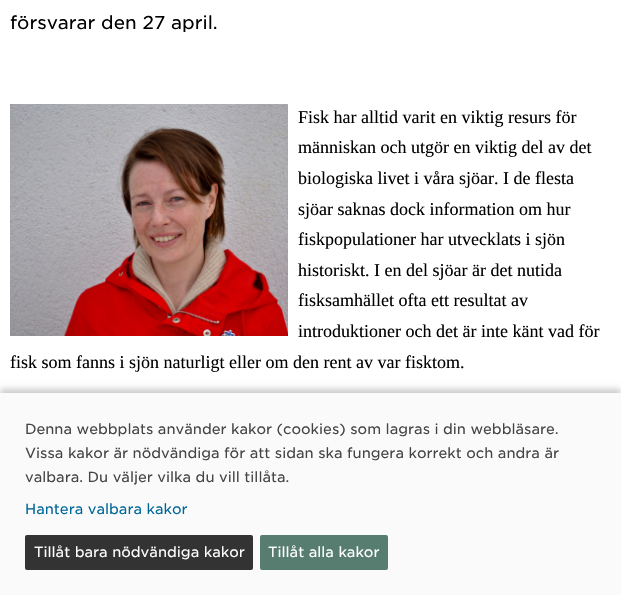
#include "include/core/SkBlurTypes.h"
#include "include/core/SkCanvas.h"
#include "include/core/SkData.h"
#include "include/core/SkFont.h"
#include "include/core/SkFontMgr.h"
#include "include/core/SkImage.h"
#include "include/core/SkMaskFilter.h"
#include "include/core/SkPaint.h"
#include "include/core/SkPathBuilder.h"
#include "include/core/SkTextBlob.h"
#include "include/effects/SkDashPathEffect.h"
#include "include/effects/SkGradientShader.h"
#include "include/utils/SkParsePath.h"

extern sk_sp<SkFontMgr> fontMgr;

void draw(SkCanvas* canvas) {
  SkPaint p;
  p.setAntiAlias(true);
  canvas->clear(SK_ColorWHITE);
  canvas->drawImageRect(SkImages::DeferredFromEncodedData(SkData::MakeFromFileName("images/1.png")), SkRect::MakeLTRB(10, 104, 288, 336), SkSamplingOptions());
  p.setColor(SkColorSetARGB(51, 0, 0, 0));
  p.setMaskFilter(SkMaskFilter::MakeBlur(kNormal_SkBlurStyle, 3));
  canvas->drawRect(SkRect::MakeLTRB(0, 389, 621, 591), p);
  p.setMaskFilter(nullptr);
  p.setColor(SkColorSetRGB(250, 250, 250));
  canvas->drawRect(SkRect::MakeLTRB(0, 393, 621, 594), p);
  p.setColor(SkColorSetRGB(51, 51, 51));
  canvas->drawRoundRect(SkRect::MakeLTRB(25, 535, 253, 570), 2, 2, p);
  p.setColor(SkColorSetRGB(86, 125, 112));
  canvas->drawRoundRect(SkRect::MakeLTRB(260, 535, 388, 570), 2, 2, p);
  SkFont font1(fontMgr->matchFamilyStyle("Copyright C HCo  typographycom", SkFontStyle(300, SkFontStyle::kNormal_Width, SkFontStyle::kUpright_Slant)), 18);
  font1.setSubpixel(true);
  p.setColor(SK_ColorBLACK);
  canvas->drawString("försvarar den 27 april.", 10, 29, font1, p);
  SkFont font2(fontMgr->matchFamilyStyle("Liberation Serif", SkFontStyle::Normal()), 18);
  font2.setSubpixel(true);
  canvas->drawString("Fisk har alltid varit en viktig resurs för", 298, 123, font2, p);
  canvas->drawString("människan och utgör en viktig del av det", 298, 153, font2, p);
  canvas->drawString("biologiska livet i våra sjöar. I de flesta", 298, 184, font2, p);
  canvas->drawString("sjöar saknas dock information om hur", 298, 215, font2, p);
  canvas->drawString("fiskpopulationer har utvecklats i sjön", 298, 245, font2, p);
  canvas->drawString("historiskt. I en del sjöar är det nutida", 298, 276, font2, p);
  canvas->drawString("fisksamhället ofta ett resultat av", 298, 306, font2, p);
  canvas->drawString("introduktioner och det är inte känt vad för", 298, 337, font2, p);
  canvas->drawString("fisk som fanns i sjön naturligt eller om den rent av var fisktom.", 10, 368, font2, p);
  SkFont font3(fontMgr->matchFamilyStyle("Copyright C HCo  typographycom", SkFontStyle(300, SkFontStyle::kNormal_Width, SkFontStyle::kUpright_Slant)), 14);
  font3.setSubpixel(true);
  p.setColor(SkColorSetRGB(68, 68, 68));
  canvas->drawString("Denna webbplats använder kakor (cookies) som lagras i din webbläsare.", 25, 434, font3, p);
  canvas->drawString("Vissa kakor är nödvändiga för att sidan ska fungera korrekt och andra är", 25, 458, font3, p);
  canvas->drawString("valbara. Du väljer vilka du vill tillåta.", 25, 482, font3, p);
  p.setColor(SkColorSetRGB(0, 102, 153));
  canvas->drawString("Hantera valbara kakor", 25, 514, font3, p);
  p.setColor(SK_ColorWHITE);
  canvas->drawString("Tillåt bara nödvändiga kakor", 34, 557, font3, p);
  canvas->drawString("Tillåt alla kakor", 268, 557, font3, p);
}
